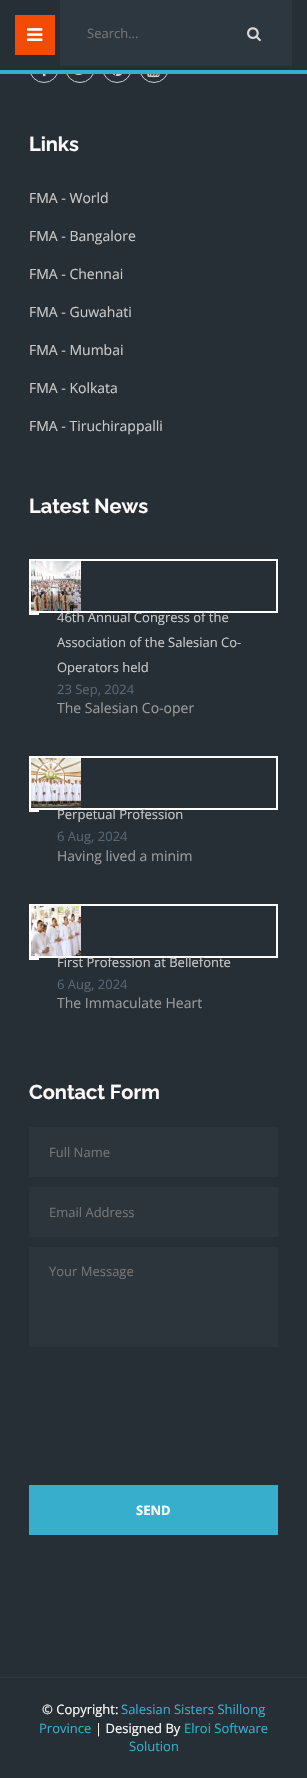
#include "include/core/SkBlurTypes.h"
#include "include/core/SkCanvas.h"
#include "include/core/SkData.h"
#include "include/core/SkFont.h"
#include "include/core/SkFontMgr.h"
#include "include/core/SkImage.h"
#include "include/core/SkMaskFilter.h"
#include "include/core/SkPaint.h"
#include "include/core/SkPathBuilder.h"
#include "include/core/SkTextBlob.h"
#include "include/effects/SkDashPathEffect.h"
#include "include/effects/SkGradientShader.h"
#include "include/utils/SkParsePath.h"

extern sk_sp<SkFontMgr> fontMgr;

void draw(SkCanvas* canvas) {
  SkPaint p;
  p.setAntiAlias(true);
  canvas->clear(SkColorSetRGB(38, 47, 54));
  p.setStyle(SkPaint::kStroke_Style);
  p.setStrokeWidth(1);
  p.setColor(SkColorSetRGB(202, 207, 211));
  canvas->drawCircle(44, 68, 14.5f, p);
  canvas->drawCircle(80, 68, 14.5f, p);
  canvas->drawCircle(117, 68, 14.5f, p);
  canvas->drawCircle(154, 68, 14.5f, p);
  p.setStyle(SkPaint::kFill_Style);
  p.setColor(SkColorSetRGB(38, 47, 54));
  canvas->drawRect(SkRect::MakeLTRB(29, 53, 169, 70), p);
  p.setColor(SkColorSetRGB(55, 174, 204));
  canvas->drawRect(SkRect::MakeLTRB(0, 70, 307, 74), p);
  p.setColor(SkColorSetRGB(241, 75, 5));
  canvas->drawRect(SkRect::MakeLTRB(15, 15, 55, 55), p);
  canvas->drawImageRect(SkImages::DeferredFromEncodedData(SkData::MakeFromFileName("images/1.png")), SkRect::MakeLTRB(27, 28, 43, 41), SkSamplingOptions());
  p.setColor(SkColorSetRGB(45, 55, 63));
  canvas->drawRect(SkRect::MakeLTRB(60, 0, 292, 66), p);
  canvas->drawImageRect(SkImages::DeferredFromEncodedData(SkData::MakeFromFileName("images/2.png")), SkRect::MakeLTRB(247, 27, 261, 42), SkSamplingOptions());
  canvas->drawImageRect(SkImages::DeferredFromEncodedData(SkData::MakeFromFileName("images/3.png")), SkRect::MakeLTRB(42, 74, 46, 77), SkSamplingOptions());
  canvas->drawImageRect(SkImages::DeferredFromEncodedData(SkData::MakeFromFileName("images/4.png")), SkRect::MakeLTRB(75, 74, 83, 75), SkSamplingOptions());
  canvas->drawImageRect(SkImages::DeferredFromEncodedData(SkData::MakeFromFileName("images/5.png")), SkRect::MakeLTRB(112, 74, 122, 77), SkSamplingOptions());
  canvas->drawImageRect(SkImages::DeferredFromEncodedData(SkData::MakeFromFileName("images/6.png")), SkRect::MakeLTRB(147, 74, 160, 78), SkSamplingOptions());
  p.setStyle(SkPaint::kStroke_Style);
  p.setStrokeWidth(2);
  p.setColor(SK_ColorWHITE);
  canvas->drawRect(SkRect::MakeLTRB(30, 560, 277, 612), p);
  canvas->drawImageRect(SkImages::DeferredFromEncodedData(SkData::MakeFromFileName("images/7.png")), SkRect::MakeLTRB(31, 561, 81, 611), SkSamplingOptions());
  p.setStyle(SkPaint::kFill_Style);
  canvas->drawRect(SkRect::MakeLTRB(29, 613, 39, 615), p);
  p.setStyle(SkPaint::kStroke_Style);
  canvas->drawRect(SkRect::MakeLTRB(30, 757, 277, 809), p);
  canvas->drawImageRect(SkImages::DeferredFromEncodedData(SkData::MakeFromFileName("images/8.png")), SkRect::MakeLTRB(31, 758, 81, 808), SkSamplingOptions());
  p.setStyle(SkPaint::kFill_Style);
  canvas->drawRect(SkRect::MakeLTRB(29, 810, 39, 812), p);
  p.setStyle(SkPaint::kStroke_Style);
  canvas->drawRect(SkRect::MakeLTRB(30, 905, 277, 957), p);
  canvas->drawImageRect(SkImages::DeferredFromEncodedData(SkData::MakeFromFileName("images/9.png")), SkRect::MakeLTRB(31, 906, 81, 956), SkSamplingOptions());
  p.setStyle(SkPaint::kFill_Style);
  canvas->drawRect(SkRect::MakeLTRB(29, 958, 39, 960), p);
  p.setColor(SkColorSetRGB(44, 53, 60));
  canvas->drawRect(SkRect::MakeLTRB(29, 1127, 278, 1177), p);
  canvas->drawRect(SkRect::MakeLTRB(29, 1187, 278, 1237), p);
  canvas->drawRect(SkRect::MakeLTRB(29, 1247, 278, 1347), p);
  p.setColor(SkColorSetRGB(55, 174, 204));
  canvas->drawRect(SkRect::MakeLTRB(29, 1485, 278, 1535), p);
  p.setColor(SkColorSetRGB(45, 55, 63));
  canvas->drawRect(SkRect::MakeLTRB(0, 1677, 307, 1678), p);
  SkFont font1(fontMgr->matchFamilyStyle("Open Sans", SkFontStyle::Normal()), 13);
  font1.setSubpixel(true);
  p.setColor(SkColorSetRGB(117, 117, 117));
  canvas->drawString("Search...", 87, 38, font1, p);
  SkFont font2(fontMgr->matchFamilyStyle("Raleway", SkFontStyle::Bold()), 20);
  font2.setSubpixel(true);
  p.setColor(SkColorSetRGB(254, 249, 249));
  canvas->drawString("Links", 29, 151, font2, p);
  SkFont font3(fontMgr->matchFamilyStyle("Open Sans", SkFontStyle::Normal()), 14);
  font3.setSubpixel(true);
  p.setColor(SkColorSetRGB(201, 201, 201));
  canvas->drawString("FMA - World", 29, 203, font3, p);
  canvas->drawString("FMA - Bangalore", 29, 241, font3, p);
  canvas->drawString("FMA - Chennai", 29, 279, font3, p);
  canvas->drawString("FMA - Guwahati", 29, 317, font3, p);
  canvas->drawString("FMA - Mumbai", 29, 355, font3, p);
  canvas->drawString("FMA - Kolkata", 29, 393, font3, p);
  canvas->drawString("FMA - Tiruchirappalli", 29, 431, font3, p);
  p.setColor(SkColorSetRGB(254, 249, 249));
  canvas->drawString("Latest News", 29, 513, font2, p);
  p.setColor(SkColorSetRGB(201, 201, 201));
  canvas->drawString("46th Annual Congress of the", 57, 622, font1, p);
  canvas->drawString("Association of the Salesian Co-", 57, 647, font1, p);
  canvas->drawString("Operators held", 57, 672, font1, p);
  p.setColor(SkColorSetRGB(87, 102, 115));
  canvas->drawString("23 Sep, 2024", 57, 694, font1, p);
  p.setColor(SkColorSetRGB(156, 156, 156));
  canvas->drawString("The Salesian Co-oper", 57, 713, font3, p);
  p.setColor(SkColorSetRGB(201, 201, 201));
  canvas->drawString("Perpetual Profession", 57, 819, font1, p);
  p.setColor(SkColorSetRGB(87, 102, 115));
  canvas->drawString("6 Aug, 2024", 57, 841, font1, p);
  p.setColor(SkColorSetRGB(156, 156, 156));
  canvas->drawString("Having lived a minim", 57, 861, font3, p);
  p.setColor(SkColorSetRGB(201, 201, 201));
  canvas->drawString("First Profession at Bellefonte", 57, 967, font1, p);
  p.setColor(SkColorSetRGB(87, 102, 115));
  canvas->drawString("6 Aug, 2024", 57, 989, font1, p);
  p.setColor(SkColorSetRGB(156, 156, 156));
  canvas->drawString("The Immaculate Heart", 57, 1008, font3, p);
  p.setColor(SkColorSetRGB(254, 249, 249));
  canvas->drawString("Contact Form", 29, 1099, font2, p);
  p.setColor(SkColorSetRGB(117, 117, 117));
  canvas->drawString("Full Name", 49, 1157, font1, p);
  canvas->drawString("Email Address", 49, 1217, font1, p);
  canvas->drawString("Your Message", 49, 1276, font1, p);
  SkFont font4(fontMgr->matchFamilyStyle("Open Sans", SkFontStyle::Bold()), 13);
  font4.setSubpixel(true);
  p.setColor(SK_ColorWHITE);
  canvas->drawString("SEND", 136, 1515, font4, p);
  canvas->drawString("© Copyright:", 42, 1714, font1, p);
  p.setColor(SkColorSetRGB(55, 174, 204));
  canvas->drawString("Salesian Sisters Shillong", 121, 1714, font1, p);
  canvas->drawString("Province", 39, 1733, font1, p);
  p.setColor(SK_ColorWHITE);
  canvas->drawString("| Designed By", 95, 1733, font1, p);
  p.setColor(SkColorSetRGB(55, 174, 204));
  canvas->drawString("Elroi Software", 184, 1733, font1, p);
  canvas->drawString("Solution", 129, 1751, font1, p);
}
